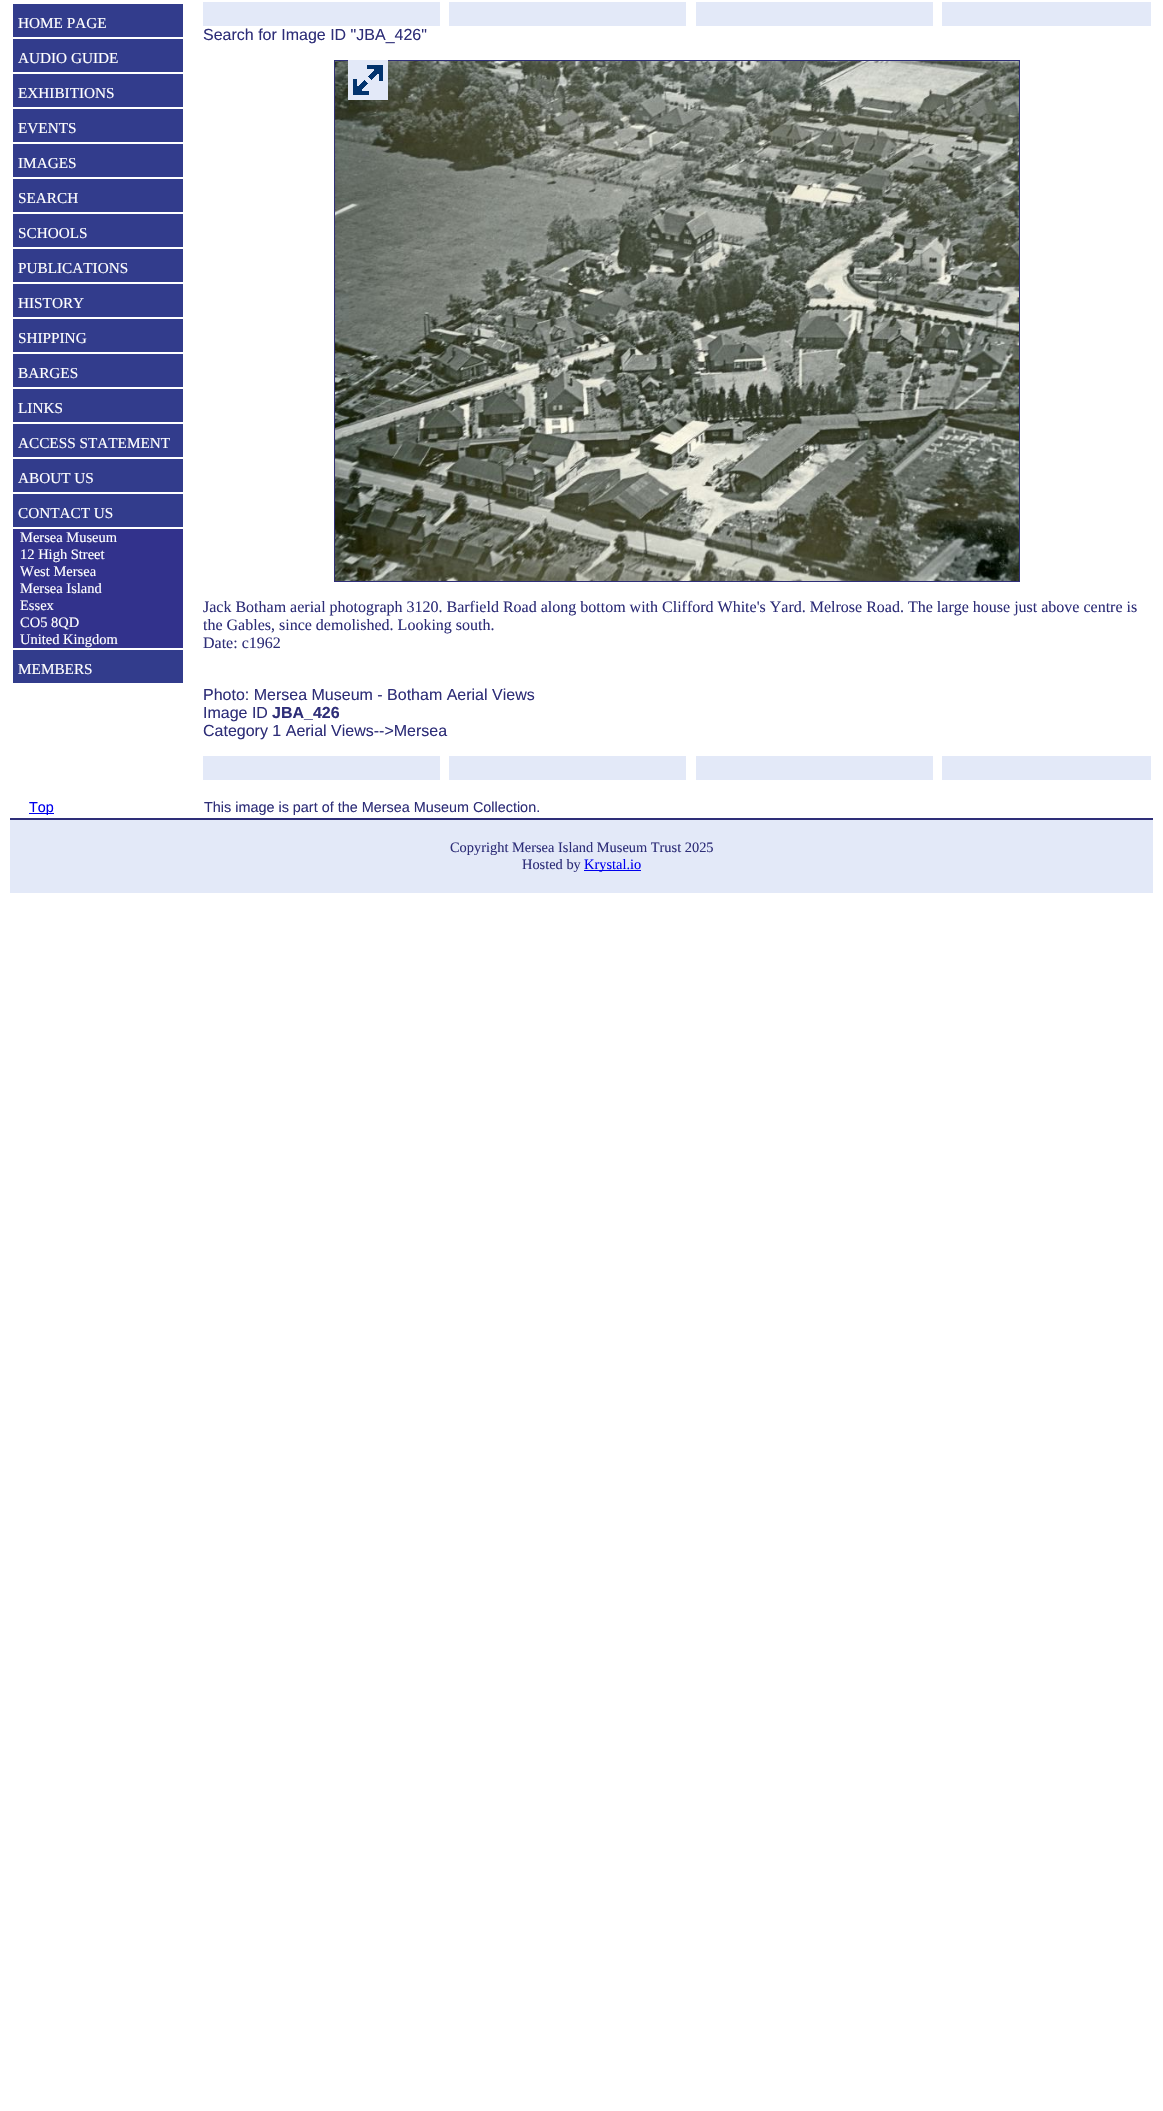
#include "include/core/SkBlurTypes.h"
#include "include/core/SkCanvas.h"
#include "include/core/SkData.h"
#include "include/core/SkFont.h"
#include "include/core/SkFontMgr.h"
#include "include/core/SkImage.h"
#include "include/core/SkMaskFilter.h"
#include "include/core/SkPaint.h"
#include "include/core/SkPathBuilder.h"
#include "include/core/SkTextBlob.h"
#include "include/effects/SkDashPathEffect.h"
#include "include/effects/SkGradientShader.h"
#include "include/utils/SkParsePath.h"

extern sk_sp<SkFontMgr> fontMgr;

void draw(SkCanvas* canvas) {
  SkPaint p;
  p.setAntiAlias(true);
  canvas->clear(SK_ColorWHITE);
  p.setColor(SkColorSetRGB(50, 60, 140));
  canvas->drawRect(SkRect::MakeLTRB(13, 4, 183, 683), p);
  p.setColor(SK_ColorWHITE);
  canvas->drawRect(SkRect::MakeLTRB(13, 37, 183, 39), p);
  canvas->drawRect(SkRect::MakeLTRB(13, 72, 183, 74), p);
  canvas->drawRect(SkRect::MakeLTRB(13, 107, 183, 109), p);
  canvas->drawRect(SkRect::MakeLTRB(13, 142, 183, 144), p);
  canvas->drawRect(SkRect::MakeLTRB(13, 177, 183, 179), p);
  canvas->drawRect(SkRect::MakeLTRB(13, 212, 183, 214), p);
  canvas->drawRect(SkRect::MakeLTRB(13, 247, 183, 249), p);
  canvas->drawRect(SkRect::MakeLTRB(13, 282, 183, 284), p);
  canvas->drawRect(SkRect::MakeLTRB(13, 317, 183, 319), p);
  canvas->drawRect(SkRect::MakeLTRB(13, 352, 183, 354), p);
  canvas->drawRect(SkRect::MakeLTRB(13, 387, 183, 389), p);
  canvas->drawRect(SkRect::MakeLTRB(13, 422, 183, 424), p);
  canvas->drawRect(SkRect::MakeLTRB(13, 457, 183, 459), p);
  canvas->drawRect(SkRect::MakeLTRB(13, 492, 183, 494), p);
  canvas->drawRect(SkRect::MakeLTRB(13, 527, 183, 529), p);
  p.setColor(SkColorSetRGB(50, 50, 140));
  canvas->drawRect(SkRect::MakeLTRB(13, 529, 183, 648), p);
  p.setColor(SK_ColorWHITE);
  canvas->drawRect(SkRect::MakeLTRB(13, 648, 183, 650), p);
  p.setColor(SkColorSetRGB(227, 233, 248));
  canvas->drawRect(SkRect::MakeLTRB(203, 2, 440, 26), p);
  canvas->drawRect(SkRect::MakeLTRB(449, 2, 686, 26), p);
  canvas->drawRect(SkRect::MakeLTRB(696, 2, 933, 26), p);
  canvas->drawRect(SkRect::MakeLTRB(942, 2, 1151, 26), p);
  p.setStyle(SkPaint::kStroke_Style);
  p.setStrokeWidth(1);
  p.setColor(SkColorSetRGB(46, 46, 120));
  canvas->drawRect(SkRect::MakeLTRB(334.5f, 60.5f, 1019.5f, 581.5f), p);
  canvas->drawImageRect(SkImages::DeferredFromEncodedData(SkData::MakeFromFileName("images/1.png")), SkRect::MakeLTRB(335, 61, 1019, 581), SkSamplingOptions());
  canvas->drawImageRect(SkImages::DeferredFromEncodedData(SkData::MakeFromFileName("images/2.png")), SkRect::MakeLTRB(348, 60, 388, 100), SkSamplingOptions());
  p.setStyle(SkPaint::kFill_Style);
  p.setColor(SkColorSetRGB(227, 233, 248));
  canvas->drawRect(SkRect::MakeLTRB(203, 756, 440, 780), p);
  canvas->drawRect(SkRect::MakeLTRB(449, 756, 686, 780), p);
  canvas->drawRect(SkRect::MakeLTRB(696, 756, 933, 780), p);
  canvas->drawRect(SkRect::MakeLTRB(942, 756, 1151, 780), p);
  p.setColor(SkColorSetRGB(0, 0, 238));
  canvas->drawRect(SkRect::MakeLTRB(29, 813, 54, 814), p);
  p.setColor(SkColorSetRGB(227, 233, 248));
  canvas->drawRect(SkRect::MakeLTRB(10, 820, 1153, 893), p);
  p.setColor(SkColorSetRGB(46, 46, 120));
  canvas->drawRect(SkRect::MakeLTRB(10, 818, 1153, 820), p);
  p.setColor(SkColorSetRGB(0, 0, 238));
  canvas->drawRect(SkRect::MakeLTRB(584, 870, 641, 871), p);
  SkFont font1(fontMgr->matchFamilyStyle("Liberation Serif", SkFontStyle::Normal()), 15.25f);
  font1.setSubpixel(true);
  p.setColor(SK_ColorWHITE);
  canvas->drawString("HOME PAGE", 18, 28, font1, p);
  canvas->drawString("AUDIO GUIDE", 18, 63, font1, p);
  canvas->drawString("EXHIBITIONS", 18, 98, font1, p);
  canvas->drawString("EVENTS", 18, 133, font1, p);
  canvas->drawString("IMAGES", 18, 168, font1, p);
  canvas->drawString("SEARCH", 18, 203, font1, p);
  canvas->drawString("SCHOOLS", 18, 238, font1, p);
  canvas->drawString("PUBLICATIONS", 18, 273, font1, p);
  canvas->drawString("HISTORY", 18, 308, font1, p);
  canvas->drawString("SHIPPING", 18, 343, font1, p);
  canvas->drawString("BARGES", 18, 378, font1, p);
  canvas->drawString("LINKS", 18, 413, font1, p);
  canvas->drawString("ACCESS STATEMENT", 18, 448, font1, p);
  canvas->drawString("ABOUT US", 18, 483, font1, p);
  canvas->drawString("CONTACT US", 18, 518, font1, p);
  SkFont font2(fontMgr->matchFamilyStyle("Liberation Serif", SkFontStyle::Normal()), 14.5f);
  font2.setSubpixel(true);
  canvas->drawString("Mersea Museum", 20, 542, font2, p);
  canvas->drawString("12 High Street", 20, 559, font2, p);
  canvas->drawString("West Mersea", 20, 576, font2, p);
  canvas->drawString("Mersea Island", 20, 593, font2, p);
  canvas->drawString("Essex", 20, 610, font2, p);
  canvas->drawString("CO5 8QD", 20, 627, font2, p);
  canvas->drawString("United Kingdom", 20, 644, font2, p);
  canvas->drawString("MEMBERS", 18, 674, font1, p);
  SkFont font3(fontMgr->matchFamilyStyle("Liberation Sans", SkFontStyle::Normal()), 16);
  font3.setSubpixel(true);
  p.setColor(SkColorSetRGB(46, 46, 120));
  canvas->drawString("Search for Image ID \"JBA_426\"", 203, 40, font3, p);
  SkFont font4(fontMgr->matchFamilyStyle("Liberation Serif", SkFontStyle::Normal()), 16);
  font4.setSubpixel(true);
  canvas->drawString("Jack Botham aerial photograph 3120. Barfield Road along bottom with Clifford White's Yard. Melrose Road. The large house just above centre is", 203, 612, font4, p);
  canvas->drawString("the Gables, since demolished. Looking south.", 203, 630, font4, p);
  canvas->drawString("Date: c1962", 203, 648, font4, p);
  canvas->drawString("Photo: Mersea Museum - Botham Aerial Views", 203, 700, font3, p);
  canvas->drawString("Image ID", 203, 718, font3, p);
  SkFont font5(fontMgr->matchFamilyStyle("Liberation Sans", SkFontStyle::Bold()), 16);
  font5.setSubpixel(true);
  canvas->drawString("JBA_426", 272, 718, font5, p);
  canvas->drawString("Category 1 Aerial Views-->Mersea", 203, 736, font3, p);
  SkFont font6(fontMgr->matchFamilyStyle("Liberation Sans", SkFontStyle::Normal()), 14.4f);
  font6.setSubpixel(true);
  p.setColor(SkColorSetRGB(0, 0, 238));
  canvas->drawString("Top", 29, 812, font6, p);
  p.setColor(SkColorSetRGB(46, 46, 120));
  canvas->drawString("This image is part of the Mersea Museum Collection.", 204, 812, font6, p);
  SkFont font7(fontMgr->matchFamilyStyle("Liberation Serif", SkFontStyle::Normal()), 14.4f);
  font7.setSubpixel(true);
  canvas->drawString("Copyright Mersea Island Museum Trust 2025", 450, 852, font7, p);
  canvas->drawString("Hosted by", 522, 869, font7, p);
  p.setColor(SkColorSetRGB(0, 0, 238));
  canvas->drawString("Krystal.io", 584, 869, font7, p);
}
